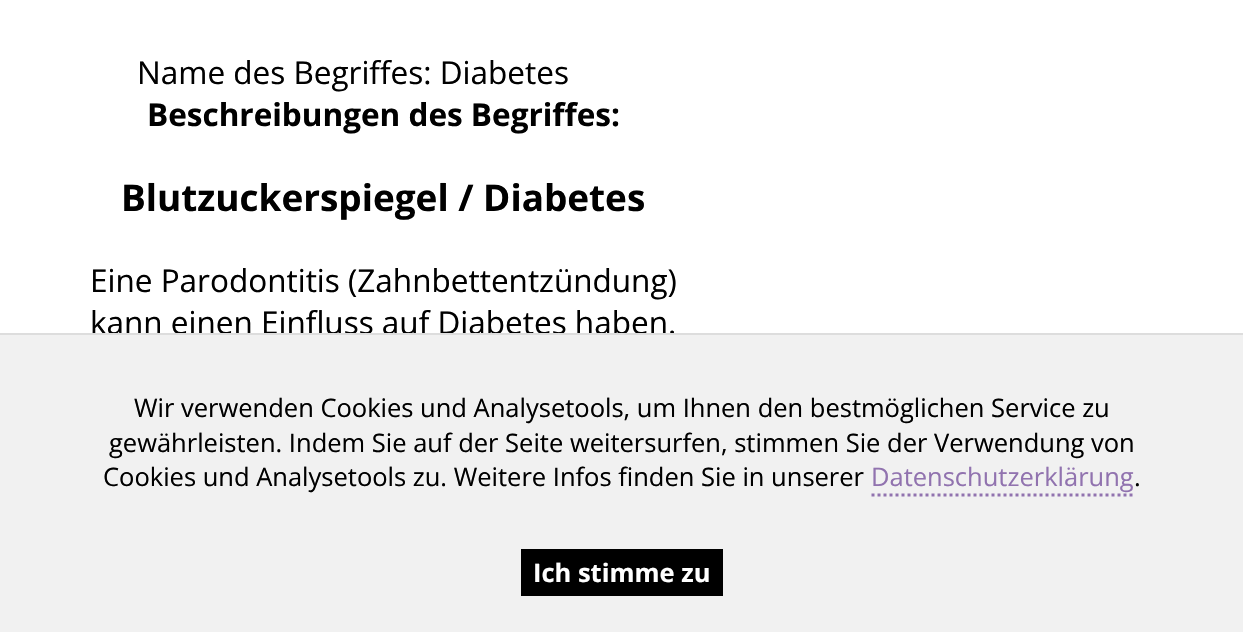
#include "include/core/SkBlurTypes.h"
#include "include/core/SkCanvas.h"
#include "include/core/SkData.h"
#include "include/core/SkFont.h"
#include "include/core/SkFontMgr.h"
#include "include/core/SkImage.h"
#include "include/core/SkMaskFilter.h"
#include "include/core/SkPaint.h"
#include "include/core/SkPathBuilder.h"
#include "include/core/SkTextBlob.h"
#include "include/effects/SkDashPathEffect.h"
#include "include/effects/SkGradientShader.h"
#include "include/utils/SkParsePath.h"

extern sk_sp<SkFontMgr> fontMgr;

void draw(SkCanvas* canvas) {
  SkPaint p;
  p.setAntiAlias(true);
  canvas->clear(SK_ColorWHITE);
  p.setColor(SkColorSetARGB(242, 240, 240, 240));
  canvas->drawRect(SkRect::MakeLTRB(0, 335, 1243, 632), p);
  p.setStyle(SkPaint::kStroke_Style);
  p.setStrokeWidth(3);
  p.setColor(SkColorSetRGB(145, 115, 175));
  p.setPathEffect(SkDashPathEffect::Make({{3, 3}}, 0));
  canvas->drawPath(SkPathBuilder().moveTo(871.5f, 495).lineTo(1134, 495).detach(), p);
  p.setPathEffect(nullptr);
  p.setStyle(SkPaint::kFill_Style);
  p.setColor(SK_ColorBLACK);
  canvas->drawRect(SkRect::MakeLTRB(521, 549, 723, 596), p);
  SkFont font1(fontMgr->matchFamilyStyle("Open Sans", SkFontStyle::Normal()), 31.5f);
  font1.setSubpixel(true);
  canvas->drawString("Name des Begriffes: Diabetes", 137, 84, font1, p);
  SkFont font2(fontMgr->matchFamilyStyle("Open Sans", SkFontStyle::Bold()), 31.5f);
  font2.setSubpixel(true);
  canvas->drawString("Beschreibungen des Begriffes:", 147, 126, font2, p);
  SkFont font3(fontMgr->matchFamilyStyle("Open Sans", SkFontStyle::Bold()), 36.9f);
  font3.setSubpixel(true);
  canvas->drawString("Blutzuckerspiegel / Diabetes", 121, 211, font3, p);
  canvas->drawString("Eine Parodontitis (Zahnbettentzündung)", 90, 292, font1, p);
  canvas->drawString("kann einen Einfluss auf Diabetes haben.", 90, 334, font1, p);
  p.setColor(SkColorSetRGB(221, 221, 221));
  canvas->drawRect(SkRect::MakeLTRB(0, 333, 1243, 335), p);
  SkFont font4(fontMgr->matchFamilyStyle("Open Sans", SkFontStyle::Normal()), 25.5f);
  font4.setSubpixel(true);
  p.setColor(SK_ColorBLACK);
  canvas->drawString("Wir verwenden Cookies und Analysetools, um Ihnen den bestmöglichen Service zu", 134, 417, font4, p);
  canvas->drawString("gewährleisten. Indem Sie auf der Seite weitersurfen, stimmen Sie der Verwendung von", 109, 452, font4, p);
  canvas->drawString("Cookies und Analysetools zu. Weitere Infos finden Sie in unserer", 103, 486, font4, p);
  p.setColor(SkColorSetRGB(145, 115, 175));
  canvas->drawString("Datenschutzerklärung", 871, 486, font4, p);
  p.setColor(SK_ColorBLACK);
  canvas->drawString(".", 1134, 486, font4, p);
  SkFont font5(fontMgr->matchFamilyStyle("Open Sans", SkFontStyle::Bold()), 25.5f);
  font5.setSubpixel(true);
  p.setColor(SK_ColorWHITE);
  canvas->drawString("Ich stimme zu", 533, 582, font5, p);
}
